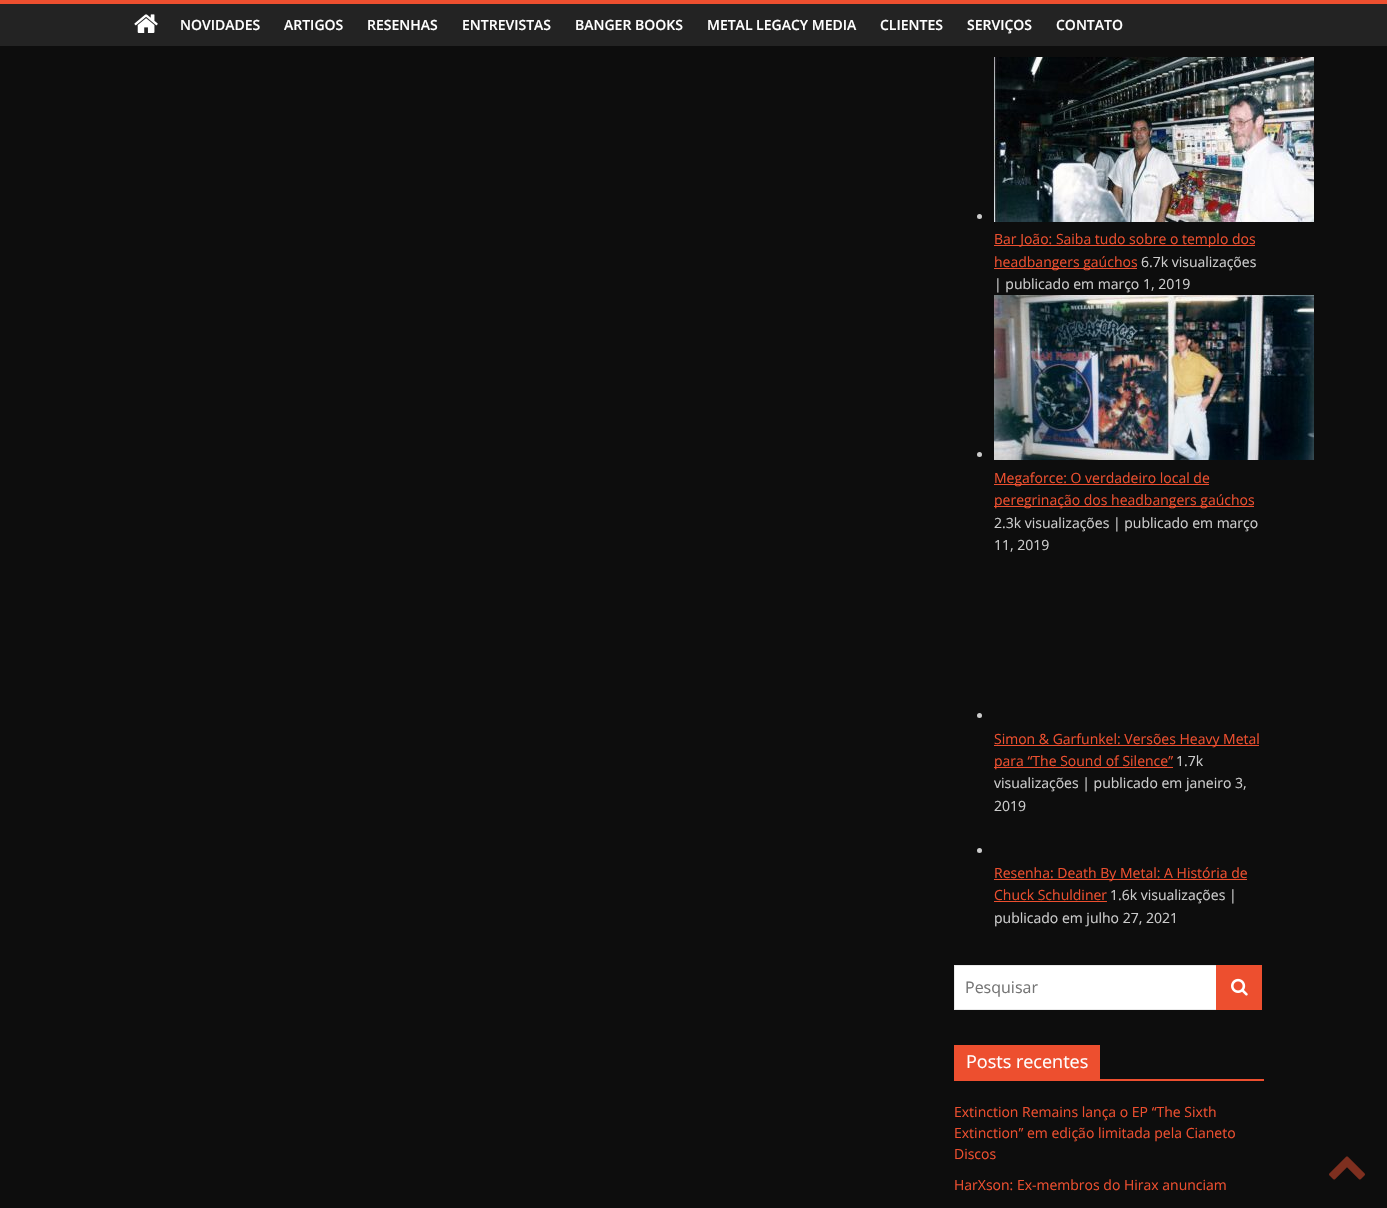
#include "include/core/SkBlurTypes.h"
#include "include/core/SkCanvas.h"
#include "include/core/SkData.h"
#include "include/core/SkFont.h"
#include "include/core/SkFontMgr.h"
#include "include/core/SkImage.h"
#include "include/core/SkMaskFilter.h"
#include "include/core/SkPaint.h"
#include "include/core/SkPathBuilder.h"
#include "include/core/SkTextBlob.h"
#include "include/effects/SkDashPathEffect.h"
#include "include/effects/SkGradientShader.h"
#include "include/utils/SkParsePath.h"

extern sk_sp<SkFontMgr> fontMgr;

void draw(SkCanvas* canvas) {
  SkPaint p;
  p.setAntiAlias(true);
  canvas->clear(SkColorSetRGB(13, 13, 13));
  p.setColor(SkColorSetRGB(35, 35, 35));
  canvas->drawRect(SkRect::MakeLTRB(0, 4, 1387, 46), p);
  p.setColor(SkColorSetRGB(237, 79, 47));
  canvas->drawRect(SkRect::MakeLTRB(0, 0, 1387, 4), p);
  canvas->drawImageRect(SkImages::DeferredFromEncodedData(SkData::MakeFromFileName("images/1.png")), SkRect::MakeLTRB(134, 14, 158, 33), SkSamplingOptions());
  p.setColor(SkColorSetRGB(204, 204, 204));
  canvas->drawCircle(979.5f, 216.5f, 2.5f, p);
  canvas->drawImageRect(SkImages::DeferredFromEncodedData(SkData::MakeFromFileName("images/2.png")), SkRect::MakeLTRB(994, 57, 1314, 222), SkSamplingOptions());
  p.setColor(SkColorSetRGB(237, 79, 47));
  canvas->drawRect(SkRect::MakeLTRB(994, 245, 1255, 246), p);
  canvas->drawRect(SkRect::MakeLTRB(994, 268, 1137, 269), p);
  p.setColor(SkColorSetRGB(204, 204, 204));
  canvas->drawCircle(979.5f, 454.5f, 2.5f, p);
  canvas->drawImageRect(SkImages::DeferredFromEncodedData(SkData::MakeFromFileName("images/3.png")), SkRect::MakeLTRB(994, 295, 1314, 460), SkSamplingOptions());
  p.setColor(SkColorSetRGB(237, 79, 47));
  canvas->drawRect(SkRect::MakeLTRB(994, 484, 1209, 485), p);
  canvas->drawRect(SkRect::MakeLTRB(994, 506, 1254, 507), p);
  p.setColor(SkColorSetRGB(204, 204, 204));
  canvas->drawCircle(979.5f, 715.5f, 2.5f, p);
  p.setColor(SkColorSetRGB(237, 79, 47));
  canvas->drawRect(SkRect::MakeLTRB(994, 745, 1259, 746), p);
  canvas->drawRect(SkRect::MakeLTRB(994, 767, 1173, 768), p);
  p.setColor(SkColorSetRGB(204, 204, 204));
  canvas->drawCircle(979.5f, 850.5f, 2.5f, p);
  p.setColor(SkColorSetRGB(237, 79, 47));
  canvas->drawRect(SkRect::MakeLTRB(994, 879, 1247, 880), p);
  canvas->drawRect(SkRect::MakeLTRB(994, 901, 1107, 902), p);
  p.setColor(SK_ColorWHITE);
  canvas->drawRect(SkRect::MakeLTRB(954.5f, 965.5f, 1216.5f, 1009.5f), p);
  p.setStyle(SkPaint::kStroke_Style);
  p.setStrokeWidth(1);
  p.setColor(SkColorSetRGB(234, 234, 234));
  canvas->drawRect(SkRect::MakeLTRB(954.5f, 965.5f, 1216.5f, 1009.5f), p);
  p.setStyle(SkPaint::kFill_Style);
  p.setColor(SkColorSetRGB(237, 79, 47));
  canvas->drawRect(SkRect::MakeLTRB(1216, 965, 1262, 1010), p);
  canvas->drawImageRect(SkImages::DeferredFromEncodedData(SkData::MakeFromFileName("images/4.png")), SkRect::MakeLTRB(1231, 978, 1248, 996), SkSamplingOptions());
  canvas->drawRect(SkRect::MakeLTRB(954, 1079, 1264, 1081), p);
  canvas->drawRect(SkRect::MakeLTRB(954, 1045, 1100, 1079), p);
  canvas->drawImageRect(SkImages::DeferredFromEncodedData(SkData::MakeFromFileName("images/5.png")), SkRect::MakeLTRB(1329, 1156, 1365, 1180), SkSamplingOptions());
  SkFont font1(fontMgr->matchFamilyStyle("Open Sans", SkFontStyle(600, SkFontStyle::kNormal_Width, SkFontStyle::kUpright_Slant)), 14);
  font1.setSubpixel(true);
  p.setColor(SK_ColorWHITE);
  canvas->drawString("NOVIDADES", 180, 30, font1, p);
  canvas->drawString("ARTIGOS", 284, 30, font1, p);
  canvas->drawString("RESENHAS", 367, 30, font1, p);
  canvas->drawString("ENTREVISTAS", 462, 30, font1, p);
  canvas->drawString("BANGER BOOKS", 575, 30, font1, p);
  canvas->drawString("METAL LEGACY MEDIA", 707, 30, font1, p);
  canvas->drawString("CLIENTES", 880, 30, font1, p);
  canvas->drawString("SERVIÇOS", 967, 30, font1, p);
  canvas->drawString("CONTATO", 1056, 30, font1, p);
  SkFont font2(fontMgr->matchFamilyStyle("Open Sans", SkFontStyle::Normal()), 14);
  font2.setSubpixel(true);
  p.setColor(SkColorSetRGB(237, 79, 47));
  canvas->drawString("Bar João: Saiba tudo sobre o templo dos", 994, 244, font2, p);
  canvas->drawString("headbangers gaúchos", 994, 267, font2, p);
  p.setColor(SkColorSetRGB(204, 204, 204));
  canvas->drawString("6.7k visualizações", 1141, 267, font2, p);
  canvas->drawString("| publicado em março 1, 2019", 994, 289, font2, p);
  p.setColor(SkColorSetRGB(237, 79, 47));
  canvas->drawString("Megaforce: O verdadeiro local de", 994, 483, font2, p);
  canvas->drawString("peregrinação dos headbangers gaúchos", 994, 505, font2, p);
  p.setColor(SkColorSetRGB(204, 204, 204));
  canvas->drawString("2.3k visualizações | publicado em março", 994, 528, font2, p);
  canvas->drawString("11, 2019", 994, 550, font2, p);
  p.setColor(SkColorSetRGB(237, 79, 47));
  canvas->drawString("Simon & Garfunkel: Versões Heavy Metal", 994, 744, font2, p);
  canvas->drawString("para “The Sound of Silence”", 994, 766, font2, p);
  p.setColor(SkColorSetRGB(204, 204, 204));
  canvas->drawString("1.7k", 1176, 766, font2, p);
  canvas->drawString("visualizações | publicado em janeiro 3,", 994, 788, font2, p);
  canvas->drawString("2019", 994, 811, font2, p);
  p.setColor(SkColorSetRGB(237, 79, 47));
  canvas->drawString("Resenha: Death By Metal: A História de", 994, 878, font2, p);
  canvas->drawString("Chuck Schuldiner", 994, 900, font2, p);
  p.setColor(SkColorSetRGB(204, 204, 204));
  canvas->drawString("1.6k visualizações |", 1110, 900, font2, p);
  canvas->drawString("publicado em julho 27, 2021", 994, 923, font2, p);
  SkFont font3(fontMgr->matchFamilyStyle("Open Sans", SkFontStyle::Normal()), 16);
  font3.setSubpixel(true);
  p.setColor(SkColorSetRGB(117, 117, 117));
  canvas->drawString("Pesquisar", 965, 993, font3, p);
  SkFont font4(fontMgr->matchFamilyStyle("Open Sans", SkFontStyle::Normal()), 18);
  font4.setSubpixel(true);
  p.setColor(SK_ColorWHITE);
  canvas->drawString("Posts recentes", 966, 1068, font4, p);
  p.setColor(SkColorSetRGB(237, 79, 47));
  canvas->drawString("Extinction Remains lança o EP “The Sixth", 954, 1117, font2, p);
  canvas->drawString("Extinction” em edição limitada pela Cianeto", 954, 1138, font2, p);
  canvas->drawString("Discos", 954, 1159, font2, p);
  canvas->drawString("HarXson: Ex-membros do Hirax anunciam", 954, 1190, font2, p);
}
